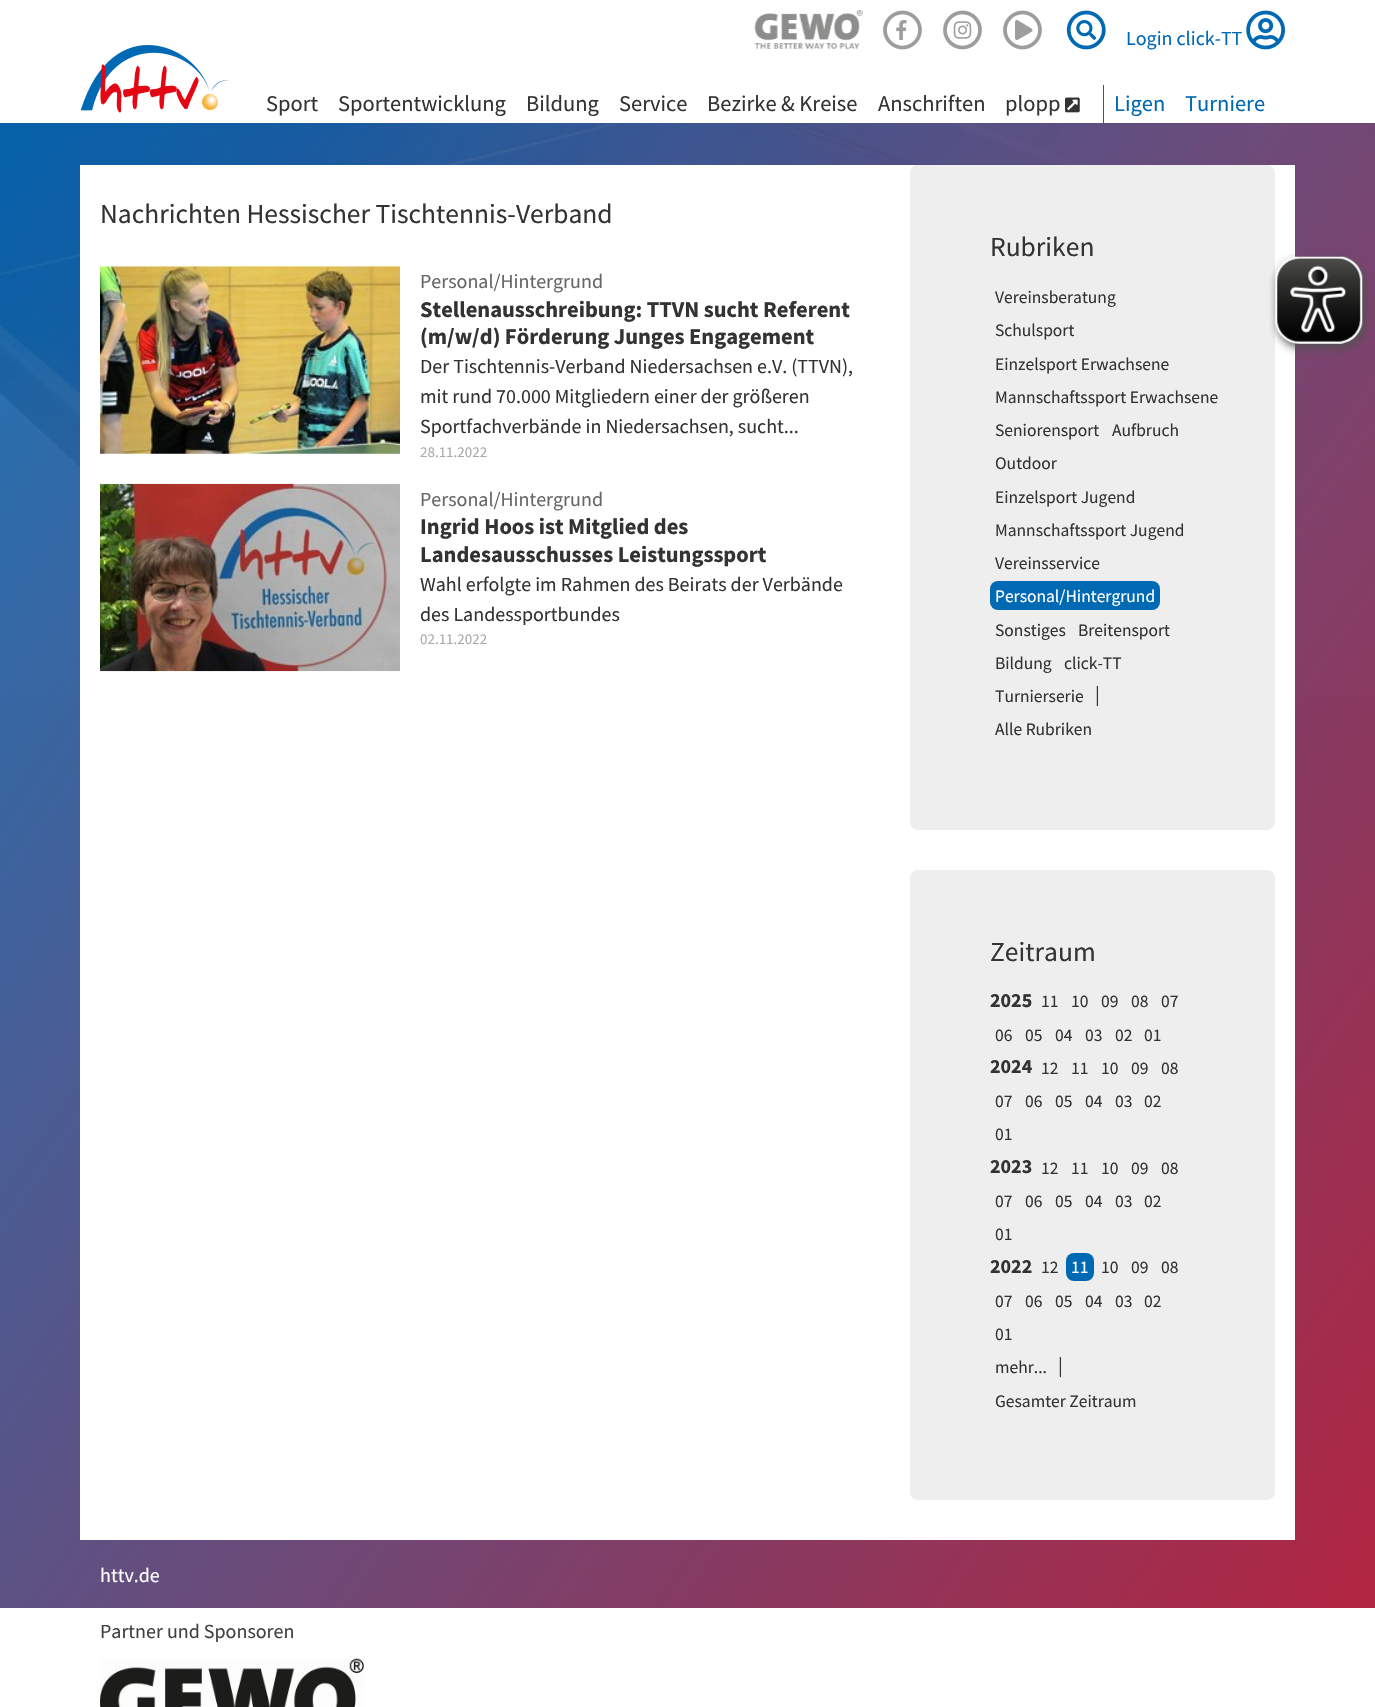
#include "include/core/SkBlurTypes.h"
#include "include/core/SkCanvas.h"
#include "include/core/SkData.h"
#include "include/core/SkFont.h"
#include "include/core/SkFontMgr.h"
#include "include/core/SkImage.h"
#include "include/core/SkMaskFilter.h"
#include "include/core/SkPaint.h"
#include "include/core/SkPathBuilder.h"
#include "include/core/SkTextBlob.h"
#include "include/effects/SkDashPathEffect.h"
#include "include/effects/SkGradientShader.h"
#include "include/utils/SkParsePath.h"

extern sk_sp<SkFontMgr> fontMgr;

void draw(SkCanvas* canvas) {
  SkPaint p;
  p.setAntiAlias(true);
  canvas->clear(SkColorSetRGB(240, 240, 240));
  canvas->drawImageRect(SkImages::DeferredFromEncodedData(SkData::MakeFromFileName("images/1.png")), SkRect::MakeLTRB(0, 123, 1375, 694), SkSamplingOptions());
  {
    const SkColor colors[] = {SkColorSetARGB(230, 188, 4, 31), SkColorSetARGB(230, 0, 105, 180)};
    const float stops[] = {0, 1};
    const SkPoint ends[] = {{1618, 1638}, {-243, 352}};
    p.setShader(SkGradientShader::MakeLinear(ends, colors, stops, 2, SkTileMode::kClamp));
    p.setAlpha(255);
  }
  canvas->drawRect(SkRect::MakeLTRB(0, 123, 1375, 1608), p);
  p.setShader(nullptr);
  p.setColor(SK_ColorWHITE);
  canvas->drawRect(SkRect::MakeLTRB(0, 0, 1375, 123), p);
  canvas->drawImageRect(SkImages::DeferredFromEncodedData(SkData::MakeFromFileName("images/2.png")), SkRect::MakeLTRB(80, 45, 229, 113), SkSamplingOptions());
  canvas->drawImageRect(SkImages::DeferredFromEncodedData(SkData::MakeFromFileName("images/3.png")), SkRect::MakeLTRB(754, 10, 863, 49), SkSamplingOptions());
  canvas->drawImageRect(SkImages::DeferredFromEncodedData(SkData::MakeFromFileName("images/5.png")), SkRect::MakeLTRB(896, 20, 907, 40), SkSamplingOptions());
  canvas->drawImageRect(SkImages::DeferredFromEncodedData(SkData::MakeFromFileName("images/4.png")), SkRect::MakeLTRB(883, 10, 922, 50), SkSamplingOptions());
  canvas->drawImageRect(SkImages::DeferredFromEncodedData(SkData::MakeFromFileName("images/7.png")), SkRect::MakeLTRB(953, 21, 972, 39), SkSamplingOptions());
  canvas->drawImageRect(SkImages::DeferredFromEncodedData(SkData::MakeFromFileName("images/6.png")), SkRect::MakeLTRB(943, 10, 982, 50), SkSamplingOptions());
  canvas->drawImageRect(SkImages::DeferredFromEncodedData(SkData::MakeFromFileName("images/8.png")), SkRect::MakeLTRB(1003, 10, 1042, 50), SkSamplingOptions());
  canvas->drawImageRect(SkImages::DeferredFromEncodedData(SkData::MakeFromFileName("images/10.png")), SkRect::MakeLTRB(1076, 20, 1097, 40), SkSamplingOptions());
  canvas->drawImageRect(SkImages::DeferredFromEncodedData(SkData::MakeFromFileName("images/9.png")), SkRect::MakeLTRB(1066, 10, 1106, 50), SkSamplingOptions());
  canvas->drawImageRect(SkImages::DeferredFromEncodedData(SkData::MakeFromFileName("images/11.png")), SkRect::MakeLTRB(1246, 10, 1285, 50), SkSamplingOptions());
  canvas->drawImageRect(SkImages::DeferredFromEncodedData(SkData::MakeFromFileName("images/12.png")), SkRect::MakeLTRB(1065, 97, 1080, 113), SkSamplingOptions());
  p.setColor(SkColorSetRGB(0, 105, 180));
  canvas->drawRect(SkRect::MakeLTRB(1103, 85, 1104, 123), p);
  p.setColor(SK_ColorWHITE);
  canvas->drawRect(SkRect::MakeLTRB(80, 165, 1295, 1540), p);
  canvas->drawImageRect(SkImages::DeferredFromEncodedData(SkData::MakeFromFileName("images/13.png")), SkRect::MakeLTRB(100, 266, 400, 454), SkSamplingOptions());
  canvas->drawImageRect(SkImages::DeferredFromEncodedData(SkData::MakeFromFileName("images/14.png")), SkRect::MakeLTRB(100, 483, 400, 672), SkSamplingOptions());
  p.setColor(SkColorSetRGB(238, 238, 238));
  canvas->drawRoundRect(SkRect::MakeLTRB(910, 165, 1275, 830), 8, 8, p);
  p.setColor(SkColorSetRGB(0, 105, 180));
  canvas->drawRoundRect(SkRect::MakeLTRB(990, 581, 1160, 610), 8, 8, p);
  p.setColor(SkColorSetRGB(238, 238, 238));
  canvas->drawRoundRect(SkRect::MakeLTRB(910, 870, 1275, 1500), 8, 8, p);
  p.setColor(SkColorSetRGB(0, 105, 180));
  canvas->drawRoundRect(SkRect::MakeLTRB(1066, 1253, 1094, 1281), 8, 8, p);
  p.setColor(SK_ColorWHITE);
  canvas->drawRect(SkRect::MakeLTRB(0, 1608, 1375, 1707), p);
  canvas->drawImageRect(SkImages::DeferredFromEncodedData(SkData::MakeFromFileName("images/15.png")), SkRect::MakeLTRB(100, 1658, 364, 1707), SkSamplingOptions());
  canvas->drawImageRect(SkImages::DeferredFromEncodedData(SkData::MakeFromFileName("images/16.png")), SkRect::MakeLTRB(1269, 253, 1371, 355), SkSamplingOptions());
  SkFont font1(fontMgr->matchFamilyStyle("Source Sans Pro", SkFontStyle::Normal()), 20);
  font1.setSubpixel(true);
  p.setColor(SkColorSetRGB(0, 105, 180));
  canvas->drawString("Login click-TT", 1126, 45, font1, p);
  SkFont font2(fontMgr->matchFamilyStyle("Source Sans Pro", SkFontStyle::Normal()), 22.5f);
  font2.setSubpixel(true);
  p.setColor(SkColorSetRGB(51, 51, 51));
  canvas->drawString("Sport", 266, 111, font2, p);
  canvas->drawString("Sportentwicklung", 338, 111, font2, p);
  canvas->drawString("Bildung", 526, 111, font2, p);
  canvas->drawString("Service", 619, 111, font2, p);
  canvas->drawString("Bezirke & Kreise", 707, 111, font2, p);
  canvas->drawString("Anschriften", 878, 111, font2, p);
  canvas->drawString("plopp", 1005, 111, font2, p);
  p.setColor(SkColorSetRGB(0, 105, 180));
  canvas->drawString("Ligen", 1114, 111, font2, p);
  canvas->drawString("Turniere", 1185, 111, font2, p);
  SkFont font3(fontMgr->matchFamilyStyle("Source Sans Pro", SkFontStyle::Normal()), 27.5f);
  font3.setSubpixel(true);
  p.setColor(SkColorSetRGB(51, 51, 51));
  canvas->drawString("Nachrichten Hessischer Tischtennis-Verband", 100, 223, font3, p);
  p.setColor(SkColorSetRGB(102, 102, 102));
  canvas->drawString("Personal/Hintergrund", 420, 288, font1, p);
  SkFont font4(fontMgr->matchFamilyStyle("Source Sans Pro", SkFontStyle::Bold()), 22.5f);
  font4.setSubpixel(true);
  p.setColor(SkColorSetRGB(51, 51, 51));
  canvas->drawString("Stellenausschreibung: TTVN sucht Referent", 420, 317, font4, p);
  canvas->drawString("(m/w/d) Förderung Junges Engagement", 420, 344, font4, p);
  canvas->drawString("Der Tischtennis-Verband Niedersachsen e.V. (TTVN),", 420, 373, font1, p);
  canvas->drawString("mit rund 70.000 Mitgliedern einer der größeren", 420, 403, font1, p);
  canvas->drawString("Sportfachverbände in Niedersachsen, sucht...", 420, 433, font1, p);
  SkFont font5(fontMgr->matchFamilyStyle("Source Sans Pro", SkFontStyle::Normal()), 15);
  font5.setSubpixel(true);
  p.setColor(SkColorSetRGB(170, 170, 170));
  canvas->drawString("28.11.2022", 420, 457, font5, p);
  p.setColor(SkColorSetRGB(102, 102, 102));
  canvas->drawString("Personal/Hintergrund", 420, 506, font1, p);
  p.setColor(SkColorSetRGB(51, 51, 51));
  canvas->drawString("Ingrid Hoos ist Mitglied des", 420, 534, font4, p);
  canvas->drawString("Landesausschusses Leistungssport", 420, 562, font4, p);
  canvas->drawString("Wahl erfolgte im Rahmen des Beirats der Verbände", 420, 591, font1, p);
  canvas->drawString("des Landessportbundes", 420, 621, font1, p);
  p.setColor(SkColorSetRGB(170, 170, 170));
  canvas->drawString("02.11.2022", 420, 644, font5, p);
  p.setColor(SkColorSetRGB(51, 51, 51));
  canvas->drawString("Rubriken", 990, 256, font3, p);
  SkFont font6(fontMgr->matchFamilyStyle("Source Sans Pro", SkFontStyle::Normal()), 17.5f);
  font6.setSubpixel(true);
  canvas->drawString("Vereinsberatung", 995, 303, font6, p);
  canvas->drawString("Schulsport", 995, 336, font6, p);
  canvas->drawString("Einzelsport Erwachsene", 995, 370, font6, p);
  canvas->drawString("Mannschaftssport Erwachsene", 995, 403, font6, p);
  canvas->drawString("Seniorensport", 995, 436, font6, p);
  canvas->drawString("Aufbruch", 1112, 436, font6, p);
  canvas->drawString("Outdoor", 995, 469, font6, p);
  canvas->drawString("Einzelsport Jugend", 995, 503, font6, p);
  canvas->drawString("Mannschaftssport Jugend", 995, 536, font6, p);
  canvas->drawString("Vereinsservice", 995, 569, font6, p);
  p.setColor(SK_ColorWHITE);
  canvas->drawString("Personal/Hintergrund", 995, 602, font6, p);
  p.setColor(SkColorSetRGB(51, 51, 51));
  canvas->drawString("Sonstiges", 995, 636, font6, p);
  canvas->drawString("Breitensport", 1078, 636, font6, p);
  canvas->drawString("Bildung", 995, 669, font6, p);
  canvas->drawString("click-TT", 1064, 669, font6, p);
  canvas->drawString("Turnierserie", 995, 702, font6, p);
  canvas->drawString("|", 1095, 701, font1, p);
  canvas->drawString("Alle Rubriken", 995, 735, font6, p);
  canvas->drawString("Zeitraum", 990, 961, font3, p);
  SkFont font7(fontMgr->matchFamilyStyle("Source Sans Pro", SkFontStyle::Bold()), 20);
  font7.setSubpixel(true);
  canvas->drawString("2025", 990, 1007, font7, p);
  canvas->drawString("11", 1041, 1007, font6, p);
  canvas->drawString("10", 1071, 1007, font6, p);
  canvas->drawString("09", 1101, 1007, font6, p);
  canvas->drawString("08", 1131, 1007, font6, p);
  canvas->drawString("07", 1161, 1007, font6, p);
  canvas->drawString("06", 995, 1041, font6, p);
  canvas->drawString("05", 1025, 1041, font6, p);
  canvas->drawString("04", 1055, 1041, font6, p);
  canvas->drawString("03", 1085, 1041, font6, p);
  canvas->drawString("02", 1115, 1041, font6, p);
  canvas->drawString("01", 1144, 1041, font6, p);
  canvas->drawString("2024", 990, 1073, font7, p);
  canvas->drawString("12", 1041, 1074, font6, p);
  canvas->drawString("11", 1071, 1074, font6, p);
  canvas->drawString("10", 1101, 1074, font6, p);
  canvas->drawString("09", 1131, 1074, font6, p);
  canvas->drawString("08", 1161, 1074, font6, p);
  canvas->drawString("07", 995, 1107, font6, p);
  canvas->drawString("06", 1025, 1107, font6, p);
  canvas->drawString("05", 1055, 1107, font6, p);
  canvas->drawString("04", 1085, 1107, font6, p);
  canvas->drawString("03", 1115, 1107, font6, p);
  canvas->drawString("02", 1144, 1107, font6, p);
  canvas->drawString("01", 995, 1140, font6, p);
  canvas->drawString("2023", 990, 1173, font7, p);
  canvas->drawString("12", 1041, 1174, font6, p);
  canvas->drawString("11", 1071, 1174, font6, p);
  canvas->drawString("10", 1101, 1174, font6, p);
  canvas->drawString("09", 1131, 1174, font6, p);
  canvas->drawString("08", 1161, 1174, font6, p);
  canvas->drawString("07", 995, 1207, font6, p);
  canvas->drawString("06", 1025, 1207, font6, p);
  canvas->drawString("05", 1055, 1207, font6, p);
  canvas->drawString("04", 1085, 1207, font6, p);
  canvas->drawString("03", 1115, 1207, font6, p);
  canvas->drawString("02", 1144, 1207, font6, p);
  canvas->drawString("01", 995, 1240, font6, p);
  canvas->drawString("2022", 990, 1273, font7, p);
  canvas->drawString("12", 1041, 1273, font6, p);
  p.setColor(SK_ColorWHITE);
  canvas->drawString("11", 1071, 1273, font6, p);
  p.setColor(SkColorSetRGB(51, 51, 51));
  canvas->drawString("10", 1101, 1273, font6, p);
  canvas->drawString("09", 1131, 1273, font6, p);
  canvas->drawString("08", 1161, 1273, font6, p);
  canvas->drawString("07", 995, 1307, font6, p);
  canvas->drawString("06", 1025, 1307, font6, p);
  canvas->drawString("05", 1055, 1307, font6, p);
  canvas->drawString("04", 1085, 1307, font6, p);
  canvas->drawString("03", 1115, 1307, font6, p);
  canvas->drawString("02", 1144, 1307, font6, p);
  canvas->drawString("01", 995, 1340, font6, p);
  canvas->drawString("mehr...", 995, 1373, font6, p);
  canvas->drawString("|", 1058, 1372, font1, p);
  canvas->drawString("Gesamter Zeitraum", 995, 1407, font6, p);
  p.setColor(SK_ColorWHITE);
  canvas->drawString("httv.de", 100, 1582, font1, p);
  p.setColor(SkColorSetRGB(64, 64, 64));
  canvas->drawString("Partner und Sponsoren", 100, 1638, font1, p);
}
